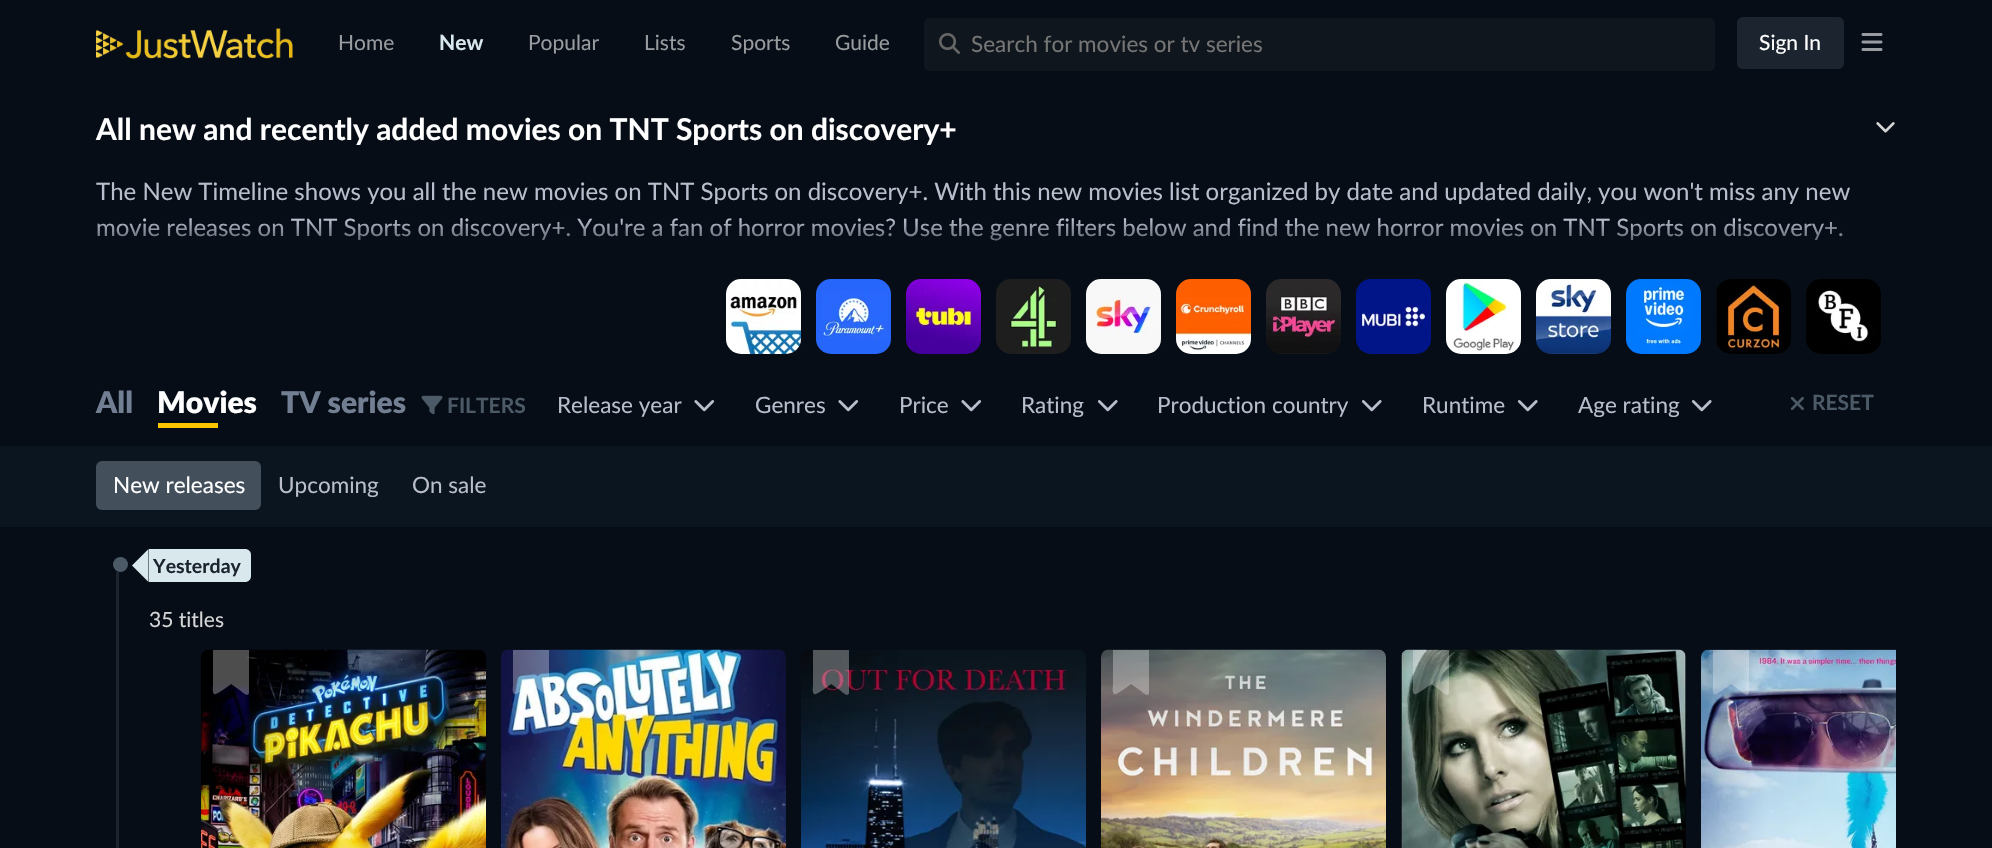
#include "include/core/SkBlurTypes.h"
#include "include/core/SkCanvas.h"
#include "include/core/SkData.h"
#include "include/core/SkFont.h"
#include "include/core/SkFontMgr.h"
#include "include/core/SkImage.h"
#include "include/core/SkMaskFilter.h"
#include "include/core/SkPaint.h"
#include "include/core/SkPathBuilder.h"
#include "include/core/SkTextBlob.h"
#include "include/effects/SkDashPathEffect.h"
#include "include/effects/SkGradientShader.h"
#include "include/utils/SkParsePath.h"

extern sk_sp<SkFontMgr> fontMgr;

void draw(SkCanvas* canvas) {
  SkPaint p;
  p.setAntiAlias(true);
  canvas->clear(SkColorSetRGB(6, 13, 23));
  canvas->drawImageRect(SkImages::DeferredFromEncodedData(SkData::MakeFromFileName("images/1.png")), SkRect::MakeLTRB(96, 28, 293, 59), SkSamplingOptions());
  p.setColor(SkColorSetRGB(16, 22, 29));
  canvas->drawRoundRect(SkRect::MakeLTRB(924, 18, 1715, 71), 6, 6, p);
  canvas->drawImageRect(SkImages::DeferredFromEncodedData(SkData::MakeFromFileName("images/2.png")), SkRect::MakeLTRB(939, 33, 960, 54), SkSamplingOptions());
  p.setColor(SkColorSetRGB(28, 37, 47));
  canvas->drawRoundRect(SkRect::MakeLTRB(1737, 17, 1844, 69), 6, 6, p);
  canvas->drawImageRect(SkImages::DeferredFromEncodedData(SkData::MakeFromFileName("images/3.png")), SkRect::MakeLTRB(1861, 33, 1883, 51), SkSamplingOptions());
  canvas->drawImageRect(SkImages::DeferredFromEncodedData(SkData::MakeFromFileName("images/4.png")), SkRect::MakeLTRB(1876, 122, 1895, 133), SkSamplingOptions());
  canvas->drawImageRect(SkImages::DeferredFromEncodedData(SkData::MakeFromFileName("images/5.png")), SkRect::MakeLTRB(726, 279, 801, 354), SkSamplingOptions());
  canvas->drawImageRect(SkImages::DeferredFromEncodedData(SkData::MakeFromFileName("images/6.png")), SkRect::MakeLTRB(816, 279, 891, 354), SkSamplingOptions());
  canvas->drawImageRect(SkImages::DeferredFromEncodedData(SkData::MakeFromFileName("images/7.png")), SkRect::MakeLTRB(906, 279, 981, 354), SkSamplingOptions());
  canvas->drawImageRect(SkImages::DeferredFromEncodedData(SkData::MakeFromFileName("images/8.png")), SkRect::MakeLTRB(996, 279, 1071, 354), SkSamplingOptions());
  canvas->drawImageRect(SkImages::DeferredFromEncodedData(SkData::MakeFromFileName("images/9.png")), SkRect::MakeLTRB(1086, 279, 1161, 354), SkSamplingOptions());
  canvas->drawImageRect(SkImages::DeferredFromEncodedData(SkData::MakeFromFileName("images/10.png")), SkRect::MakeLTRB(1176, 279, 1251, 354), SkSamplingOptions());
  canvas->drawImageRect(SkImages::DeferredFromEncodedData(SkData::MakeFromFileName("images/11.png")), SkRect::MakeLTRB(1266, 279, 1341, 354), SkSamplingOptions());
  canvas->drawImageRect(SkImages::DeferredFromEncodedData(SkData::MakeFromFileName("images/12.png")), SkRect::MakeLTRB(1356, 279, 1431, 354), SkSamplingOptions());
  canvas->drawImageRect(SkImages::DeferredFromEncodedData(SkData::MakeFromFileName("images/13.png")), SkRect::MakeLTRB(1446, 279, 1521, 354), SkSamplingOptions());
  canvas->drawImageRect(SkImages::DeferredFromEncodedData(SkData::MakeFromFileName("images/14.png")), SkRect::MakeLTRB(1536, 279, 1611, 354), SkSamplingOptions());
  canvas->drawImageRect(SkImages::DeferredFromEncodedData(SkData::MakeFromFileName("images/15.png")), SkRect::MakeLTRB(1626, 279, 1701, 354), SkSamplingOptions());
  canvas->drawImageRect(SkImages::DeferredFromEncodedData(SkData::MakeFromFileName("images/16.png")), SkRect::MakeLTRB(1716, 279, 1791, 354), SkSamplingOptions());
  canvas->drawImageRect(SkImages::DeferredFromEncodedData(SkData::MakeFromFileName("images/17.png")), SkRect::MakeLTRB(1806, 279, 1881, 354), SkSamplingOptions());
  p.setColor(SkColorSetRGB(251, 197, 0));
  canvas->drawRect(SkRect::MakeLTRB(158, 423, 218, 428), p);
  canvas->drawImageRect(SkImages::DeferredFromEncodedData(SkData::MakeFromFileName("images/18.png")), SkRect::MakeLTRB(421, 395, 443, 415), SkSamplingOptions());
  canvas->drawImageRect(SkImages::DeferredFromEncodedData(SkData::MakeFromFileName("images/19.png")), SkRect::MakeLTRB(694, 400, 715, 412), SkSamplingOptions());
  canvas->drawImageRect(SkImages::DeferredFromEncodedData(SkData::MakeFromFileName("images/19.png")), SkRect::MakeLTRB(838, 400, 859, 412), SkSamplingOptions());
  canvas->drawImageRect(SkImages::DeferredFromEncodedData(SkData::MakeFromFileName("images/19.png")), SkRect::MakeLTRB(961, 400, 982, 412), SkSamplingOptions());
  canvas->drawImageRect(SkImages::DeferredFromEncodedData(SkData::MakeFromFileName("images/20.png")), SkRect::MakeLTRB(1097, 400, 1118, 412), SkSamplingOptions());
  canvas->drawImageRect(SkImages::DeferredFromEncodedData(SkData::MakeFromFileName("images/20.png")), SkRect::MakeLTRB(1361, 400, 1382, 412), SkSamplingOptions());
  canvas->drawImageRect(SkImages::DeferredFromEncodedData(SkData::MakeFromFileName("images/20.png")), SkRect::MakeLTRB(1517, 400, 1538, 412), SkSamplingOptions());
  canvas->drawImageRect(SkImages::DeferredFromEncodedData(SkData::MakeFromFileName("images/20.png")), SkRect::MakeLTRB(1691, 400, 1712, 412), SkSamplingOptions());
  canvas->drawImageRect(SkImages::DeferredFromEncodedData(SkData::MakeFromFileName("images/21.png")), SkRect::MakeLTRB(1790, 397, 1804, 410), SkSamplingOptions());
  p.setColor(SkColorSetRGB(10, 21, 31));
  canvas->drawRect(SkRect::MakeLTRB(0, 446, 1992, 527), p);
  p.setColor(SkColorSetRGB(67, 79, 91));
  canvas->drawRoundRect(SkRect::MakeLTRB(96, 461, 261, 510), 6, 6, p);
  p.setColor(SkColorSetRGB(28, 37, 47));
  canvas->drawRect(SkRect::MakeLTRB(116, 572, 119, 848), p);
  p.setColor(SkColorSetRGB(76, 90, 103));
  canvas->drawCircle(120.5f, 564.5f, 7.5f, p);
  p.setColor(SkColorSetRGB(217, 232, 237));
  canvas->drawPath(SkPathBuilder().moveTo(149, 549).lineTo(245, 549).cubicTo(248.5f, 549, 251, 551.5f, 251, 555).lineTo(251, 576).cubicTo(251, 579.5f, 248.5f, 582, 245, 582).lineTo(149, 582).close().detach(), p);
  canvas->drawPath(SkPathBuilder().moveTo(148.5f, 549).lineTo(148.5f, 582).lineTo(132, 565.5f).close().detach(), p);
  canvas->drawImageRect(SkImages::DeferredFromEncodedData(SkData::MakeFromFileName("images/22.png")), SkRect::MakeLTRB(201, 649, 486, 848), SkSamplingOptions());
  p.setColor(SkColorSetARGB(77, 255, 255, 255));
  canvas->drawPath(SkPathBuilder().moveTo(213, 651).lineTo(213, 650).lineTo(249, 650).lineTo(249, 658).lineTo(249, 693).cubicTo(248, 698, 241, 691, 241, 691).lineTo(231, 684).cubicTo(229, 686, 215, 696, 214, 694).cubicTo(212, 692, 213, 687, 213, 685).close().detach(), p);
  canvas->drawImageRect(SkImages::DeferredFromEncodedData(SkData::MakeFromFileName("images/23.png")), SkRect::MakeLTRB(501, 649, 786, 848), SkSamplingOptions());
  canvas->drawPath(SkPathBuilder().moveTo(513, 651).lineTo(513, 650).lineTo(549, 650).lineTo(549, 658).lineTo(549, 693).cubicTo(548, 698, 541, 691, 541, 691).lineTo(531, 684).cubicTo(529, 686, 515, 696, 514, 694).cubicTo(512, 692, 513, 687, 513, 685).close().detach(), p);
  canvas->drawImageRect(SkImages::DeferredFromEncodedData(SkData::MakeFromFileName("images/24.png")), SkRect::MakeLTRB(801, 650, 1086, 848), SkSamplingOptions());
  canvas->drawPath(SkPathBuilder().moveTo(813, 651).lineTo(813, 650).lineTo(849, 650).lineTo(849, 658).lineTo(849, 693).cubicTo(848, 698, 841, 691, 841, 691).lineTo(831, 684).cubicTo(829, 686, 815, 696, 814, 694).cubicTo(812, 692, 813, 687, 813, 685).close().detach(), p);
  canvas->drawImageRect(SkImages::DeferredFromEncodedData(SkData::MakeFromFileName("images/25.png")), SkRect::MakeLTRB(1101, 649, 1386, 848), SkSamplingOptions());
  canvas->drawPath(SkPathBuilder().moveTo(1113, 651).lineTo(1113, 650).lineTo(1149, 650).lineTo(1149, 658).lineTo(1149, 693).cubicTo(1148, 698, 1141, 691, 1141, 691).lineTo(1131, 684).cubicTo(1129, 686, 1115, 696, 1114, 694).cubicTo(1112, 692, 1113, 687, 1113, 685).close().detach(), p);
  canvas->drawImageRect(SkImages::DeferredFromEncodedData(SkData::MakeFromFileName("images/26.png")), SkRect::MakeLTRB(1401, 649, 1686, 848), SkSamplingOptions());
  canvas->drawPath(SkPathBuilder().moveTo(1413, 651).lineTo(1413, 650).lineTo(1449, 650).lineTo(1449, 658).lineTo(1449, 693).cubicTo(1448, 698, 1441, 691, 1441, 691).lineTo(1431, 684).cubicTo(1429, 686, 1415, 696, 1414, 694).cubicTo(1412, 692, 1413, 687, 1413, 685).close().detach(), p);
  canvas->drawImageRect(SkImages::DeferredFromEncodedData(SkData::MakeFromFileName("images/27.png")), SkRect::MakeLTRB(1701, 649, 1896, 848), SkSamplingOptions());
  canvas->drawPath(SkPathBuilder().moveTo(1713, 651).lineTo(1713, 650).lineTo(1749, 650).lineTo(1749, 658).lineTo(1749, 693).cubicTo(1748, 698, 1741, 691, 1741, 691).lineTo(1731, 684).cubicTo(1729, 686, 1715, 696, 1714, 694).cubicTo(1712, 692, 1713, 687, 1713, 685).close().detach(), p);
  SkFont font1(fontMgr->matchFamilyStyle("Lato", SkFontStyle::Normal()), 21);
  font1.setSubpixel(true);
  p.setColor(SkColorSetRGB(153, 156, 159));
  canvas->drawString("Home", 338, 50, font1, p);
  SkFont font2(fontMgr->matchFamilyStyle("Lato", SkFontStyle::Bold()), 21);
  font2.setSubpixel(true);
  p.setColor(SkColorSetRGB(217, 232, 237));
  canvas->drawString("New", 439, 50, font2, p);
  p.setColor(SkColorSetRGB(153, 156, 159));
  canvas->drawString("Popular", 528, 50, font1, p);
  canvas->drawString("Lists", 644, 50, font1, p);
  canvas->drawString("Sports", 731, 50, font1, p);
  canvas->drawString("Guide", 835, 50, font1, p);
  SkFont font3(fontMgr->matchFamilyStyle("Lato", SkFontStyle::Normal()), 22.5f);
  font3.setSubpixel(true);
  p.setColor(SkColorSetRGB(117, 117, 117));
  canvas->drawString("Search for movies or tv series", 971, 52, font3, p);
  p.setColor(SK_ColorWHITE);
  canvas->drawString("Sign In", 1759, 50, font1, p);
  SkFont font4(fontMgr->matchFamilyStyle("Lato", SkFontStyle::Bold()), 30);
  font4.setSubpixel(true);
  canvas->drawString("All new and recently added movies on TNT Sports on discovery+", 96, 140, font4, p);
  SkFont font5(fontMgr->matchFamilyStyle("Lato", SkFontStyle::Normal()), 24);
  font5.setSubpixel(true);
  p.setColor(SkColorSetRGB(185, 189, 204));
  canvas->drawString("The New Timeline shows you all the new movies on TNT Sports on discovery+. With this new movies list organized by date and updated daily, you won't miss any new", 96, 200, font5, p);
  canvas->drawString("movie releases on TNT Sports on discovery+. You're a fan of horror movies? Use the genre filters below and find the new horror movies on TNT Sports on discovery+.", 96, 236, font5, p);
  {
    const SkColor colors[] = {SkColorSetARGB(0, 6, 13, 23), SkColorSetRGB(6, 13, 23)};
    const float stops[] = {0, 1};
    const SkPoint ends[] = {{996, 219}, {996, 264}};
    p.setShader(SkGradientShader::MakeLinear(ends, colors, stops, 2, SkTileMode::kClamp));
    p.setAlpha(255);
  }
  canvas->drawRect(SkRect::MakeLTRB(97, 220, 1843, 241), p);
  SkFont font6(fontMgr->matchFamilyStyle("Lato", SkFontStyle(900, SkFontStyle::kNormal_Width, SkFontStyle::kUpright_Slant)), 30);
  font6.setSubpixel(true);
  p.setShader(nullptr);
  p.setColor(SkColorSetRGB(114, 127, 146));
  canvas->drawString("All", 96, 413, font6, p);
  p.setColor(SK_ColorWHITE);
  canvas->drawString("Movies", 157, 413, font6, p);
  p.setColor(SkColorSetRGB(114, 127, 146));
  canvas->drawString("TV series", 281, 413, font6, p);
  p.setColor(SkColorSetRGB(76, 90, 103));
  canvas->drawString("FILTERS", 447, 413, font2, p);
  p.setColor(SkColorSetRGB(185, 189, 204));
  canvas->drawString("Release year", 557, 413, font3, p);
  canvas->drawString("Genres", 755, 413, font3, p);
  canvas->drawString("Price", 899, 413, font3, p);
  canvas->drawString("Rating", 1021, 413, font3, p);
  canvas->drawString("Production country", 1157, 413, font3, p);
  canvas->drawString("Runtime", 1422, 413, font3, p);
  canvas->drawString("Age rating", 1578, 413, font3, p);
  p.setColor(SkColorSetRGB(76, 90, 103));
  canvas->drawString("RESET", 1812, 410, font2, p);
  p.setColor(SK_ColorWHITE);
  canvas->drawString("New releases", 113, 493, font3, p);
  p.setColor(SkColorSetRGB(185, 189, 204));
  canvas->drawString("Upcoming", 278, 493, font3, p);
  canvas->drawString("On sale", 412, 493, font3, p);
  SkFont font7(fontMgr->matchFamilyStyle("Lato", SkFontStyle::Bold()), 19.5f);
  font7.setSubpixel(true);
  p.setColor(SkColorSetRGB(28, 37, 47));
  canvas->drawString("Yesterday", 153, 573, font7, p);
  p.setColor(SkColorSetRGB(213, 213, 213));
  canvas->drawString("35 titles", 149, 627, font1, p);
}
